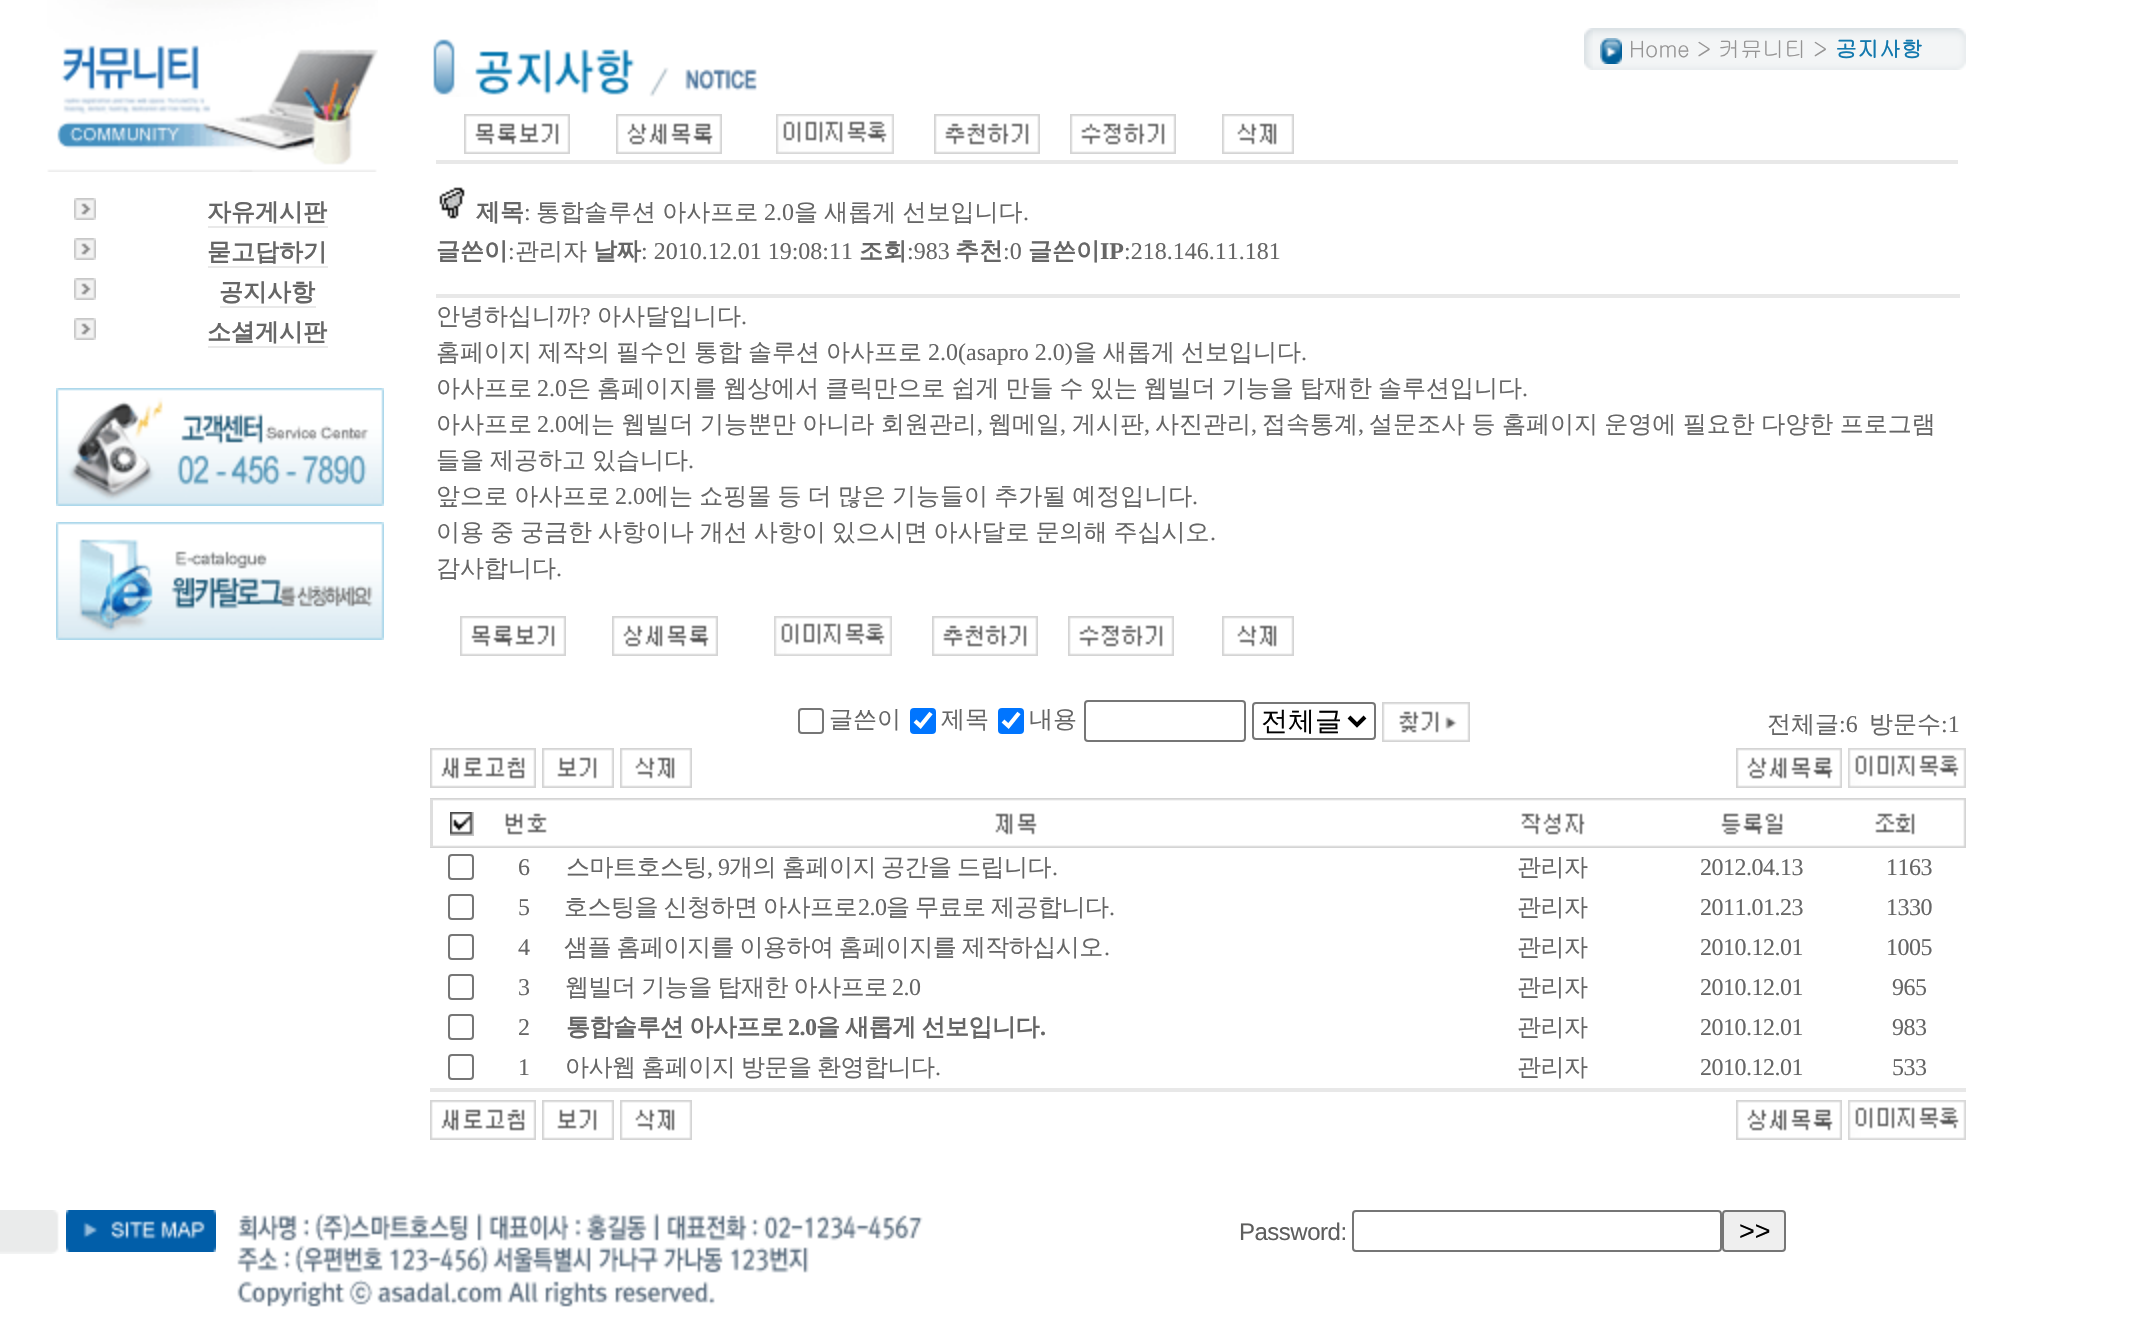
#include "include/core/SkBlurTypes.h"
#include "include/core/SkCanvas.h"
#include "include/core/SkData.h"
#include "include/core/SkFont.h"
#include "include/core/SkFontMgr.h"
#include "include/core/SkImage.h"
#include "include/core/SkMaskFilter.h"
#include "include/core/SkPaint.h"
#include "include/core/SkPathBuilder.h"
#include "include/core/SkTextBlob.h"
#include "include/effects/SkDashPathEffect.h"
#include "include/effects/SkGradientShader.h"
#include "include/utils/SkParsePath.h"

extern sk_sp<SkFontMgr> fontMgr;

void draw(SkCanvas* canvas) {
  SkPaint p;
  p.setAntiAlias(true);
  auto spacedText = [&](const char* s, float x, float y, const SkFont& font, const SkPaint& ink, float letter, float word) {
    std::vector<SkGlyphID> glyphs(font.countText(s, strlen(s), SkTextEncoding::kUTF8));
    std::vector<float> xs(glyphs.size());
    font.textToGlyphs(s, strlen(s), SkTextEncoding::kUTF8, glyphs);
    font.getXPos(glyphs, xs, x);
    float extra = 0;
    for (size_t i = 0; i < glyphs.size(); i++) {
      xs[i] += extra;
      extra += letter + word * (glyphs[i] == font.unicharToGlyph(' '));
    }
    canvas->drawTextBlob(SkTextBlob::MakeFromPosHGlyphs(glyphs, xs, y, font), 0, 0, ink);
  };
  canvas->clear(SK_ColorWHITE);
  canvas->drawImageRect(SkImages::DeferredFromEncodedData(SkData::MakeFromFileName("images/1.png")), SkRect::MakeLTRB(47, 0, 378, 172), SkSamplingOptions());
  canvas->drawImageRect(SkImages::DeferredFromEncodedData(SkData::MakeFromFileName("images/2.png")), SkRect::MakeLTRB(74, 198, 96, 220), SkSamplingOptions());
  p.setColor(SkColorSetRGB(233, 233, 233));
  canvas->drawRect(SkRect::MakeLTRB(208, 226, 328, 228), p);
  canvas->drawImageRect(SkImages::DeferredFromEncodedData(SkData::MakeFromFileName("images/2.png")), SkRect::MakeLTRB(74, 238, 96, 260), SkSamplingOptions());
  canvas->drawRect(SkRect::MakeLTRB(208, 266, 328, 268), p);
  canvas->drawImageRect(SkImages::DeferredFromEncodedData(SkData::MakeFromFileName("images/2.png")), SkRect::MakeLTRB(74, 278, 96, 300), SkSamplingOptions());
  canvas->drawRect(SkRect::MakeLTRB(220, 306, 316, 308), p);
  canvas->drawImageRect(SkImages::DeferredFromEncodedData(SkData::MakeFromFileName("images/2.png")), SkRect::MakeLTRB(74, 318, 96, 340), SkSamplingOptions());
  canvas->drawRect(SkRect::MakeLTRB(208, 346, 328, 348), p);
  canvas->drawImageRect(SkImages::DeferredFromEncodedData(SkData::MakeFromFileName("images/3.png")), SkRect::MakeLTRB(56, 388, 384, 506), SkSamplingOptions());
  canvas->drawImageRect(SkImages::DeferredFromEncodedData(SkData::MakeFromFileName("images/4.png")), SkRect::MakeLTRB(56, 522, 384, 640), SkSamplingOptions());
  canvas->drawImageRect(SkImages::DeferredFromEncodedData(SkData::MakeFromFileName("images/5.png")), SkRect::MakeLTRB(433, 39, 757, 97), SkSamplingOptions());
  canvas->drawImageRect(SkImages::DeferredFromEncodedData(SkData::MakeFromFileName("images/6.png")), SkRect::MakeLTRB(1593, 28, 1600, 70), SkSamplingOptions());
  canvas->drawImageRect(SkImages::DeferredFromEncodedData(SkData::MakeFromFileName("images/7.png")), SkRect::MakeLTRB(1584, 28, 1593, 70), SkSamplingOptions());
  canvas->drawImageRect(SkImages::DeferredFromEncodedData(SkData::MakeFromFileName("images/8.png")), SkRect::MakeLTRB(1600, 28, 1952, 70), SkSamplingOptions());
  canvas->drawImageRect(SkImages::DeferredFromEncodedData(SkData::MakeFromFileName("images/9.png")), SkRect::MakeLTRB(1600, 38, 1622, 64), SkSamplingOptions());
  canvas->drawImageRect(SkImages::DeferredFromEncodedData(SkData::MakeFromFileName("images/10.png")), SkRect::MakeLTRB(1952, 28, 1966, 70), SkSamplingOptions());
  canvas->drawImageRect(SkImages::DeferredFromEncodedData(SkData::MakeFromFileName("images/11.png")), SkRect::MakeLTRB(464, 114, 570, 154), SkSamplingOptions());
  canvas->drawImageRect(SkImages::DeferredFromEncodedData(SkData::MakeFromFileName("images/12.png")), SkRect::MakeLTRB(616, 114, 722, 154), SkSamplingOptions());
  canvas->drawImageRect(SkImages::DeferredFromEncodedData(SkData::MakeFromFileName("images/13.png")), SkRect::MakeLTRB(776, 114, 894, 154), SkSamplingOptions());
  canvas->drawImageRect(SkImages::DeferredFromEncodedData(SkData::MakeFromFileName("images/14.png")), SkRect::MakeLTRB(934, 114, 1040, 154), SkSamplingOptions());
  canvas->drawImageRect(SkImages::DeferredFromEncodedData(SkData::MakeFromFileName("images/15.png")), SkRect::MakeLTRB(1070, 114, 1176, 154), SkSamplingOptions());
  canvas->drawImageRect(SkImages::DeferredFromEncodedData(SkData::MakeFromFileName("images/16.png")), SkRect::MakeLTRB(1222, 114, 1294, 154), SkSamplingOptions());
  p.setColor(SkColorSetRGB(232, 232, 232));
  canvas->drawRect(SkRect::MakeLTRB(436, 160, 1958, 164), p);
  canvas->drawImageRect(SkImages::DeferredFromEncodedData(SkData::MakeFromFileName("images/17.png")), SkRect::MakeLTRB(439, 187, 465, 219), SkSamplingOptions());
  canvas->drawRect(SkRect::MakeLTRB(436, 294, 1960, 298), p);
  canvas->drawImageRect(SkImages::DeferredFromEncodedData(SkData::MakeFromFileName("images/11.png")), SkRect::MakeLTRB(460, 616, 566, 656), SkSamplingOptions());
  canvas->drawImageRect(SkImages::DeferredFromEncodedData(SkData::MakeFromFileName("images/12.png")), SkRect::MakeLTRB(612, 616, 718, 656), SkSamplingOptions());
  canvas->drawImageRect(SkImages::DeferredFromEncodedData(SkData::MakeFromFileName("images/13.png")), SkRect::MakeLTRB(774, 616, 892, 656), SkSamplingOptions());
  canvas->drawImageRect(SkImages::DeferredFromEncodedData(SkData::MakeFromFileName("images/14.png")), SkRect::MakeLTRB(932, 616, 1038, 656), SkSamplingOptions());
  canvas->drawImageRect(SkImages::DeferredFromEncodedData(SkData::MakeFromFileName("images/15.png")), SkRect::MakeLTRB(1068, 616, 1174, 656), SkSamplingOptions());
  canvas->drawImageRect(SkImages::DeferredFromEncodedData(SkData::MakeFromFileName("images/16.png")), SkRect::MakeLTRB(1222, 616, 1294, 656), SkSamplingOptions());
  p.setStyle(SkPaint::kStroke_Style);
  p.setStrokeWidth(2);
  p.setColor(SkColorSetRGB(118, 118, 118));
  canvas->drawRoundRect(SkRect::MakeLTRB(799, 709, 823, 733), 3, 3, p);
  p.setStyle(SkPaint::kFill_Style);
  p.setColor(SkColorSetRGB(0, 117, 255));
  canvas->drawRoundRect(SkRect::MakeLTRB(910, 708, 936, 734), 4, 4, p);
  p.setStyle(SkPaint::kStroke_Style);
  p.setStrokeWidth(4.2f);
  p.setColor(SK_ColorWHITE);
  canvas->drawPath(SkPathBuilder().moveTo(915, 721).lineTo(920.5f, 726).lineTo(931, 713).detach(), p);
  p.setStyle(SkPaint::kFill_Style);
  p.setColor(SkColorSetRGB(0, 117, 255));
  canvas->drawRoundRect(SkRect::MakeLTRB(998, 708, 1024, 734), 4, 4, p);
  p.setStyle(SkPaint::kStroke_Style);
  p.setColor(SK_ColorWHITE);
  canvas->drawPath(SkPathBuilder().moveTo(1003, 721).lineTo(1008.5f, 726).lineTo(1019, 713).detach(), p);
  p.setStrokeWidth(2);
  p.setColor(SkColorSetRGB(118, 118, 118));
  canvas->drawRoundRect(SkRect::MakeLTRB(1085, 701, 1245, 741), 3, 3, p);
  canvas->drawRoundRect(SkRect::MakeLTRB(1253, 703, 1375, 739), 3, 3, p);
  p.setStrokeWidth(4);
  p.setColor(SK_ColorBLACK);
  canvas->drawPath(SkPathBuilder().moveTo(1349, 717).lineTo(1357, 725).lineTo(1365, 717).detach(), p);
  canvas->drawImageRect(SkImages::DeferredFromEncodedData(SkData::MakeFromFileName("images/18.png")), SkRect::MakeLTRB(1382, 702, 1470, 742), SkSamplingOptions());
  canvas->drawImageRect(SkImages::DeferredFromEncodedData(SkData::MakeFromFileName("images/19.png")), SkRect::MakeLTRB(430, 748, 536, 788), SkSamplingOptions());
  canvas->drawImageRect(SkImages::DeferredFromEncodedData(SkData::MakeFromFileName("images/20.png")), SkRect::MakeLTRB(542, 748, 614, 788), SkSamplingOptions());
  canvas->drawImageRect(SkImages::DeferredFromEncodedData(SkData::MakeFromFileName("images/16.png")), SkRect::MakeLTRB(620, 748, 692, 788), SkSamplingOptions());
  canvas->drawImageRect(SkImages::DeferredFromEncodedData(SkData::MakeFromFileName("images/12.png")), SkRect::MakeLTRB(1736, 748, 1842, 788), SkSamplingOptions());
  canvas->drawImageRect(SkImages::DeferredFromEncodedData(SkData::MakeFromFileName("images/13.png")), SkRect::MakeLTRB(1848, 748, 1966, 788), SkSamplingOptions());
  canvas->drawImageRect(SkImages::DeferredFromEncodedData(SkData::MakeFromFileName("images/21.png")), SkRect::MakeLTRB(430, 798, 490, 848), SkSamplingOptions());
  p.setStyle(SkPaint::kFill_Style);
  p.setColor(SkColorSetRGB(222, 222, 222));
  canvas->drawRect(SkRect::MakeLTRB(430, 799, 433, 847), p);
  canvas->drawImageRect(SkImages::DeferredFromEncodedData(SkData::MakeFromFileName("images/22.png")), SkRect::MakeLTRB(450, 812, 474, 836), SkSamplingOptions());
  canvas->drawImageRect(SkImages::DeferredFromEncodedData(SkData::MakeFromFileName("images/23.png")), SkRect::MakeLTRB(490, 798, 558, 848), SkSamplingOptions());
  canvas->drawImageRect(SkImages::DeferredFromEncodedData(SkData::MakeFromFileName("images/24.png")), SkRect::MakeLTRB(505, 813, 547, 835), SkSamplingOptions());
  canvas->drawImageRect(SkImages::DeferredFromEncodedData(SkData::MakeFromFileName("images/25.png")), SkRect::MakeLTRB(558, 798, 1472, 848), SkSamplingOptions());
  canvas->drawImageRect(SkImages::DeferredFromEncodedData(SkData::MakeFromFileName("images/26.png")), SkRect::MakeLTRB(995, 813, 1037, 835), SkSamplingOptions());
  canvas->drawImageRect(SkImages::DeferredFromEncodedData(SkData::MakeFromFileName("images/27.png")), SkRect::MakeLTRB(1472, 798, 1632, 848), SkSamplingOptions());
  canvas->drawImageRect(SkImages::DeferredFromEncodedData(SkData::MakeFromFileName("images/28.png")), SkRect::MakeLTRB(1521, 813, 1585, 835), SkSamplingOptions());
  canvas->drawImageRect(SkImages::DeferredFromEncodedData(SkData::MakeFromFileName("images/29.png")), SkRect::MakeLTRB(1632, 798, 1872, 848), SkSamplingOptions());
  canvas->drawImageRect(SkImages::DeferredFromEncodedData(SkData::MakeFromFileName("images/30.png")), SkRect::MakeLTRB(1721, 813, 1783, 835), SkSamplingOptions());
  canvas->drawImageRect(SkImages::DeferredFromEncodedData(SkData::MakeFromFileName("images/31.png")), SkRect::MakeLTRB(1872, 798, 1946, 848), SkSamplingOptions());
  canvas->drawImageRect(SkImages::DeferredFromEncodedData(SkData::MakeFromFileName("images/32.png")), SkRect::MakeLTRB(1875, 813, 1915, 835), SkSamplingOptions());
  canvas->drawImageRect(SkImages::DeferredFromEncodedData(SkData::MakeFromFileName("images/33.png")), SkRect::MakeLTRB(1946, 798, 1966, 848), SkSamplingOptions());
  p.setStyle(SkPaint::kStroke_Style);
  p.setStrokeWidth(2);
  p.setColor(SkColorSetRGB(118, 118, 118));
  canvas->drawRoundRect(SkRect::MakeLTRB(449, 855, 473, 879), 3, 3, p);
  canvas->drawRoundRect(SkRect::MakeLTRB(449, 895, 473, 919), 3, 3, p);
  canvas->drawRoundRect(SkRect::MakeLTRB(449, 935, 473, 959), 3, 3, p);
  canvas->drawRoundRect(SkRect::MakeLTRB(449, 975, 473, 999), 3, 3, p);
  canvas->drawRoundRect(SkRect::MakeLTRB(449, 1015, 473, 1039), 3, 3, p);
  canvas->drawRoundRect(SkRect::MakeLTRB(449, 1055, 473, 1079), 3, 3, p);
  p.setStyle(SkPaint::kFill_Style);
  p.setColor(SkColorSetRGB(232, 232, 232));
  canvas->drawRect(SkRect::MakeLTRB(430, 1088, 1966, 1092), p);
  canvas->drawImageRect(SkImages::DeferredFromEncodedData(SkData::MakeFromFileName("images/19.png")), SkRect::MakeLTRB(430, 1100, 536, 1140), SkSamplingOptions());
  canvas->drawImageRect(SkImages::DeferredFromEncodedData(SkData::MakeFromFileName("images/20.png")), SkRect::MakeLTRB(542, 1100, 614, 1140), SkSamplingOptions());
  canvas->drawImageRect(SkImages::DeferredFromEncodedData(SkData::MakeFromFileName("images/16.png")), SkRect::MakeLTRB(620, 1100, 692, 1140), SkSamplingOptions());
  canvas->drawImageRect(SkImages::DeferredFromEncodedData(SkData::MakeFromFileName("images/12.png")), SkRect::MakeLTRB(1736, 1100, 1842, 1140), SkSamplingOptions());
  canvas->drawImageRect(SkImages::DeferredFromEncodedData(SkData::MakeFromFileName("images/13.png")), SkRect::MakeLTRB(1848, 1100, 1966, 1140), SkSamplingOptions());
  canvas->drawImageRect(SkImages::DeferredFromEncodedData(SkData::MakeFromFileName("images/34.png")), SkRect::MakeLTRB(0, 1210, 59, 1254), SkSamplingOptions());
  canvas->drawImageRect(SkImages::DeferredFromEncodedData(SkData::MakeFromFileName("images/35.png")), SkRect::MakeLTRB(66, 1210, 216, 1252), SkSamplingOptions());
  canvas->drawImageRect(SkImages::DeferredFromEncodedData(SkData::MakeFromFileName("images/36.png")), SkRect::MakeLTRB(237, 1213, 923, 1307), SkSamplingOptions());
  p.setStyle(SkPaint::kStroke_Style);
  p.setColor(SkColorSetRGB(118, 118, 118));
  canvas->drawRoundRect(SkRect::MakeLTRB(1353, 1211, 1721, 1251), 3, 3, p);
  p.setStyle(SkPaint::kFill_Style);
  p.setColor(SkColorSetRGB(239, 239, 239));
  canvas->drawRoundRect(SkRect::MakeLTRB(1723, 1211, 1785, 1251), 3, 3, p);
  p.setStyle(SkPaint::kStroke_Style);
  p.setColor(SkColorSetRGB(118, 118, 118));
  canvas->drawRoundRect(SkRect::MakeLTRB(1723, 1211, 1785, 1251), 3, 3, p);
  SkFont font1(fontMgr->matchFamilyStyle("WenQuanYi Zen Hei", SkFontStyle::Bold()), 24);
  font1.setSubpixel(true);
  p.setStyle(SkPaint::kFill_Style);
  p.setColor(SkColorSetRGB(102, 102, 102));
  canvas->drawString("자유게시판", 207, 220, font1, p);
  canvas->drawString("묻고답하기", 207, 260, font1, p);
  canvas->drawString("공지사항", 219, 300, font1, p);
  canvas->drawString("소셜게시판", 207, 340, font1, p);
  SkFont font2(fontMgr->matchFamilyStyle("Gulim", SkFontStyle::Normal()), 22);
  font2.setSubpixel(true);
  p.setColor(SkColorSetRGB(150, 149, 149));
  canvas->drawString("Home > 커뮤니티 >", 1629, 57, font2, p);
  SkFont font3(fontMgr->matchFamilyStyle("Gulim", SkFontStyle::Bold()), 22);
  font3.setSubpixel(true);
  p.setColor(SkColorSetRGB(19, 121, 174));
  canvas->drawString("공지사항", 1835, 57, font3, p);
  p.setColor(SkColorSetRGB(102, 102, 102));
  canvas->drawString("제목", 476, 220, font1, p);
  SkFont font4(fontMgr->matchFamilyStyle("Liberation Serif", SkFontStyle::Normal()), 24);
  font4.setSubpixel(true);
  canvas->drawString(":", 524, 220, font4, p);
  SkFont font5(fontMgr->matchFamilyStyle("WenQuanYi Zen Hei", SkFontStyle(500, SkFontStyle::kNormal_Width, SkFontStyle::kUpright_Slant)), 24);
  font5.setSubpixel(true);
  spacedText("통합솔루션 아사프로", 536, 220, font5, p, 0, -1);
  canvas->drawString("2.0", 764, 220, font4, p);
  spacedText("을 새롭게 선보입니다", 794, 220, font5, p, 0, -1);
  canvas->drawString(".", 1023, 220, font4, p);
  canvas->drawString("글쓴이", 436, 259, font1, p);
  canvas->drawString(":", 508, 259, font4, p);
  canvas->drawString("관리자", 515, 259, font5, p);
  canvas->drawString("날짜", 593, 259, font1, p);
  canvas->drawString(": 2010.12.01 19:08:11", 641, 259, font4, p);
  canvas->drawString("조회", 859, 259, font1, p);
  canvas->drawString(":983", 907, 259, font4, p);
  canvas->drawString("추천", 955, 259, font1, p);
  canvas->drawString(":0", 1003, 259, font4, p);
  canvas->drawString("글쓴이", 1028, 259, font1, p);
  SkFont font6(fontMgr->matchFamilyStyle("Liberation Serif", SkFontStyle::Bold()), 24);
  font6.setSubpixel(true);
  canvas->drawString("IP", 1100, 259, font6, p);
  canvas->drawString(":218.146.11.181", 1124, 259, font4, p);
  canvas->drawString("안녕하십니까", 436, 324, font5, p);
  canvas->drawString("?", 580, 324, font4, p);
  canvas->drawString("아사달입니다", 597, 324, font5, p);
  canvas->drawString(".", 741, 324, font4, p);
  canvas->drawString("홈페이지", 436, 360, font5, p);
  canvas->drawString("제작의", 538, 360, font5, p);
  canvas->drawString("필수인", 616, 360, font5, p);
  canvas->drawString("통합", 694, 360, font5, p);
  canvas->drawString("솔루션", 748, 360, font5, p);
  canvas->drawString("아사프로", 826, 360, font5, p);
  canvas->drawString("2.0(asapro 2.0)", 928, 360, font4, p);
  canvas->drawString("을", 1073, 360, font5, p);
  canvas->drawString("새롭게", 1103, 360, font5, p);
  canvas->drawString("선보입니다", 1181, 360, font5, p);
  canvas->drawString(".", 1301, 360, font4, p);
  canvas->drawString("아사프로", 436, 396, font5, p);
  canvas->drawString("2.0", 537, 396, font4, p);
  spacedText("은 홈페이지를 웹상에서 클릭만으로 쉽게 만들 수 있는 웹빌더 기능을 탑재한 솔루션입니다", 567, 396, font5, p, 0, -1.1f);
  canvas->drawString(".", 1522, 396, font4, p);
  canvas->drawString("아사프로", 436, 432, font5, p);
  canvas->drawString("2.0", 537, 432, font4, p);
  spacedText("에는 웹빌더 기능뿐만 아니라 회원관리", 567, 432, font5, p, 0, -0.75f);
  canvas->drawString(",", 977, 432, font4, p);
  canvas->drawString("웹메일", 988, 432, font5, p);
  canvas->drawString(",", 1060, 432, font4, p);
  canvas->drawString("게시판", 1072, 432, font5, p);
  canvas->drawString(",", 1144, 432, font4, p);
  canvas->drawString("사진관리", 1155, 432, font5, p);
  canvas->drawString(",", 1251, 432, font4, p);
  canvas->drawString("접속통계", 1262, 432, font5, p);
  canvas->drawString(",", 1358, 432, font4, p);
  spacedText("설문조사 등 홈페이지 운영에 필요한 다양한 프로그램", 1369, 432, font5, p, 0, -0.75f);
  spacedText("들을 제공하고 있습니다", 436, 468, font5, p, 0, -1.25f);
  canvas->drawString(".", 688, 468, font4, p);
  spacedText("앞으로 아사프로", 436, 504, font5, p, 0, -1);
  canvas->drawString("2.0", 615, 504, font4, p);
  spacedText("에는 쇼핑몰 등 더 많은 기능들이 추가될 예정입니다", 645, 504, font5, p, 0, -1);
  canvas->drawString(".", 1192, 504, font4, p);
  spacedText("이용 중 궁금한 사항이나 개선 사항이 있으시면 아사달로 문의해 주십시오", 436, 540, font5, p, 0, -1.25f);
  canvas->drawString(".", 1210, 540, font4, p);
  canvas->drawString("감사합니다", 436, 576, font5, p);
  canvas->drawString(".", 556, 576, font4, p);
  canvas->drawString("글쓴이", 829, 727, font5, p);
  canvas->drawString("제목", 941, 727, font5, p);
  canvas->drawString("내용", 1029, 727, font5, p);
  SkFont font7(fontMgr->matchFamilyStyle("WenQuanYi Zen Hei", SkFontStyle(500, SkFontStyle::kNormal_Width, SkFontStyle::kUpright_Slant)), 27);
  font7.setSubpixel(true);
  p.setColor(SK_ColorBLACK);
  canvas->drawString("전체글", 1261, 730, font7, p);
  p.setColor(SkColorSetRGB(102, 102, 102));
  canvas->drawString("전체글", 1767, 732, font5, p);
  canvas->drawString(":6", 1839, 732, font4, p);
  canvas->drawString("방문수", 1869, 732, font5, p);
  canvas->drawString(":1", 1941, 732, font4, p);
  spacedText("6", 518, 875, font4, p, -0.5f, 0);
  spacedText("스마트호스팅", 566, 875, font5, p, -0.5f, 0);
  spacedText(", 9", 707, 875, font4, p, -0.5f, 0);
  spacedText("개의", 729, 875, font5, p, -0.5f, 0);
  spacedText("홈페이지", 782, 875, font5, p, -0.5f, 0);
  spacedText("공간을", 881, 875, font5, p, -0.5f, 0);
  spacedText("드립니다", 957, 875, font5, p, -0.5f, 0);
  spacedText(".", 1052, 875, font4, p, -0.5f, 0);
  spacedText("관리자", 1517, 875, font5, p, -0.5f, 0);
  spacedText("2012.04.13", 1700, 875, font4, p, -0.5f, 0);
  spacedText("1163", 1886, 875, font4, p, -0.5f, 0);
  spacedText("5", 518, 915, font4, p, -0.5f, 0);
  spacedText("호스팅을 신청하면 아사프로", 564, 915, font5, p, -0.5f, -1.25f);
  spacedText("2.0", 858, 915, font4, p, -0.5f, 0);
  spacedText("을 무료로 제공합니다", 886, 915, font5, p, -0.5f, -1.25f);
  spacedText(".", 1109, 915, font4, p, -0.5f, 0);
  spacedText("관리자", 1517, 915, font5, p, -0.5f, 0);
  spacedText("2011.01.23", 1700, 915, font4, p, -0.5f, 0);
  spacedText("1330", 1886, 915, font4, p, -0.5f, 0);
  spacedText("4", 518, 955, font4, p, -0.5f, 0);
  spacedText("샘플 홈페이지를 이용하여 홈페이지를 제작하십시오", 564, 955, font5, p, -0.5f, -1.25f);
  spacedText(".", 1104, 955, font4, p, -0.5f, 0);
  spacedText("관리자", 1517, 955, font5, p, -0.5f, 0);
  spacedText("2010.12.01", 1700, 955, font4, p, -0.5f, 0);
  spacedText("1005", 1886, 955, font4, p, -0.5f, 0);
  spacedText("3", 518, 995, font4, p, -0.5f, 0);
  spacedText("웹빌더 기능을 탑재한 아사프로", 565, 995, font5, p, -0.5f, -1);
  spacedText("2.0", 892, 995, font4, p, -0.5f, 0);
  spacedText("관리자", 1517, 995, font5, p, -0.5f, 0);
  spacedText("2010.12.01", 1700, 995, font4, p, -0.5f, 0);
  spacedText("965", 1892, 995, font4, p, -0.5f, 0);
  spacedText("2", 518, 1035, font4, p, -0.5f, 0);
  spacedText("통합솔루션 아사프로", 566, 1035, font1, p, -0.5f, -1);
  spacedText("2.0", 788, 1035, font6, p, -0.5f, 0);
  spacedText("을 새롭게 선보입니다", 816, 1035, font1, p, -0.5f, -1);
  spacedText(".", 1040, 1035, font6, p, -0.5f, 0);
  spacedText("관리자", 1517, 1035, font5, p, -0.5f, 0);
  spacedText("2010.12.01", 1700, 1035, font4, p, -0.5f, 0);
  spacedText("983", 1892, 1035, font4, p, -0.5f, 0);
  spacedText("1", 518, 1075, font4, p, -0.5f, 0);
  spacedText("아사웹 홈페이지 방문을 환영합니다", 565, 1075, font5, p, -0.5f, -1);
  spacedText(".", 935, 1075, font4, p, -0.5f, 0);
  spacedText("관리자", 1517, 1075, font5, p, -0.5f, 0);
  spacedText("2010.12.01", 1700, 1075, font4, p, -0.5f, 0);
  spacedText("533", 1892, 1075, font4, p, -0.5f, 0);
  SkFont font8(fontMgr->matchFamilyStyle("Liberation Sans", SkFontStyle::Normal()), 24);
  font8.setSubpixel(true);
  p.setColor(SkColorSetRGB(94, 94, 93));
  spacedText("Password:", 1239, 1240, font8, p, -0.5f, 0);
  SkFont font9(fontMgr->matchFamilyStyle("Liberation Sans", SkFontStyle::Normal()), 27);
  font9.setSubpixel(true);
  p.setColor(SK_ColorBLACK);
  canvas->drawString(">>", 1739, 1240, font9, p);
}
